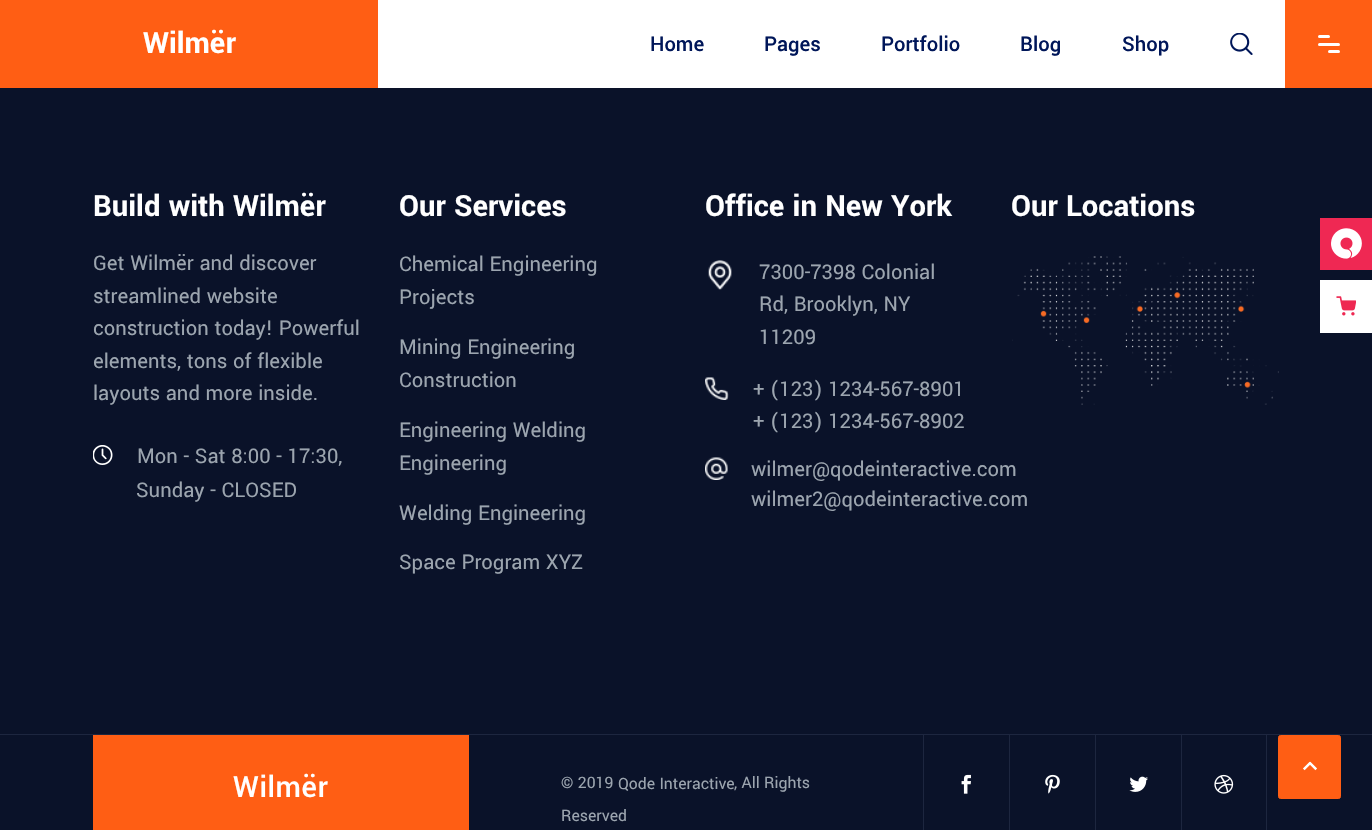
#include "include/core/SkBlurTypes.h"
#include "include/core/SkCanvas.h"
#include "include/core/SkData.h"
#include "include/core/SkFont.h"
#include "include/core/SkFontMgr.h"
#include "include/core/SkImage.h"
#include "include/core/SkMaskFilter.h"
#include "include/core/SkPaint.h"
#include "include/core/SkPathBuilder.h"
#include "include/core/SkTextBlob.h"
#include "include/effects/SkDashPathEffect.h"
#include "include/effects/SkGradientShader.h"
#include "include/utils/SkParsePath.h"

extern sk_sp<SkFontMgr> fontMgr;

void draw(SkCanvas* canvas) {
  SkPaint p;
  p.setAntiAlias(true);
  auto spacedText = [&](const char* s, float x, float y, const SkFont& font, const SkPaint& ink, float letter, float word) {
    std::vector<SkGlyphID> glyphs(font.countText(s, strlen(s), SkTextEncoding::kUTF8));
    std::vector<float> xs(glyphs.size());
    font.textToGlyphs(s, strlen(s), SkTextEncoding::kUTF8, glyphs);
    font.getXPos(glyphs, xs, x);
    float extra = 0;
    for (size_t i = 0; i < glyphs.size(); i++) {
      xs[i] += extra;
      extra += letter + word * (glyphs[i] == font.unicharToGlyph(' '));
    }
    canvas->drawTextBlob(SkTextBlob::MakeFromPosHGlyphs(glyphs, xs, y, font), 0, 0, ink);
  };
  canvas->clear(SkColorSetRGB(10, 18, 41));
  p.setColor(SK_ColorWHITE);
  canvas->drawRect(SkRect::MakeLTRB(378, 0, 1285, 88), p);
  p.setColor(SkColorSetRGB(255, 94, 20));
  canvas->drawRect(SkRect::MakeLTRB(0, 0, 378, 88), p);
  canvas->drawImageRect(SkImages::DeferredFromEncodedData(SkData::MakeFromFileName("images/1.png")), SkRect::MakeLTRB(1230, 33, 1253, 55), SkSamplingOptions());
  canvas->drawRect(SkRect::MakeLTRB(1285, 0, 1372, 88), p);
  p.setColor(SK_ColorWHITE);
  canvas->drawRoundRect(SkRect::MakeLTRB(1318, 35, 1330, 38), 1.5f, 1.5f, p);
  canvas->drawRoundRect(SkRect::MakeLTRB(1318, 43, 1340, 46), 1.5f, 1.5f, p);
  canvas->drawRoundRect(SkRect::MakeLTRB(1328, 50, 1340, 53), 1.5f, 1.5f, p);
  canvas->drawImageRect(SkImages::DeferredFromEncodedData(SkData::MakeFromFileName("images/2.png")), SkRect::MakeLTRB(93, 445, 113, 465), SkSamplingOptions());
  canvas->drawImageRect(SkImages::DeferredFromEncodedData(SkData::MakeFromFileName("images/3.png")), SkRect::MakeLTRB(708, 260, 732, 290), SkSamplingOptions());
  canvas->drawImageRect(SkImages::DeferredFromEncodedData(SkData::MakeFromFileName("images/4.png")), SkRect::MakeLTRB(705, 377, 729, 400), SkSamplingOptions());
  canvas->drawImageRect(SkImages::DeferredFromEncodedData(SkData::MakeFromFileName("images/5.png")), SkRect::MakeLTRB(705, 457, 728, 480), SkSamplingOptions());
  canvas->drawImageRect(SkImages::DeferredFromEncodedData(SkData::MakeFromFileName("images/6.png")), SkRect::MakeLTRB(1012, 256, 1279, 405), SkSamplingOptions());
  p.setColor(SkColorSetRGB(29, 38, 63));
  canvas->drawRect(SkRect::MakeLTRB(0, 734, 1372, 735), p);
  p.setColor(SkColorSetRGB(255, 94, 20));
  canvas->drawRect(SkRect::MakeLTRB(93, 735, 469, 830), p);
  p.setColor(SkColorSetRGB(29, 38, 63));
  canvas->drawRect(SkRect::MakeLTRB(923, 735, 924, 830), p);
  canvas->drawImageRect(SkImages::DeferredFromEncodedData(SkData::MakeFromFileName("images/7.png")), SkRect::MakeLTRB(961, 774, 971, 794), SkSamplingOptions());
  canvas->drawRect(SkRect::MakeLTRB(1009, 735, 1010, 830), p);
  canvas->drawImageRect(SkImages::DeferredFromEncodedData(SkData::MakeFromFileName("images/8.png")), SkRect::MakeLTRB(1045, 774, 1060, 794), SkSamplingOptions());
  canvas->drawRect(SkRect::MakeLTRB(1095, 735, 1096, 830), p);
  canvas->drawImageRect(SkImages::DeferredFromEncodedData(SkData::MakeFromFileName("images/9.png")), SkRect::MakeLTRB(1129, 776, 1148, 792), SkSamplingOptions());
  canvas->drawRect(SkRect::MakeLTRB(1266, 735, 1267, 830), p);
  canvas->drawRect(SkRect::MakeLTRB(1181, 735, 1182, 830), p);
  canvas->drawImageRect(SkImages::DeferredFromEncodedData(SkData::MakeFromFileName("images/10.png")), SkRect::MakeLTRB(1214, 774, 1234, 794), SkSamplingOptions());
  p.setColor(SkColorSetRGB(255, 94, 20));
  canvas->drawRoundRect(SkRect::MakeLTRB(1278.5f, 735.5f, 1340.5f, 798.5f), 2, 2, p);
  p.setStyle(SkPaint::kStroke_Style);
  p.setStrokeWidth(1);
  canvas->drawRoundRect(SkRect::MakeLTRB(1278.5f, 735.5f, 1340.5f, 798.5f), 2, 2, p);
  canvas->drawImageRect(SkImages::DeferredFromEncodedData(SkData::MakeFromFileName("images/11.png")), SkRect::MakeLTRB(1303, 761, 1317, 771), SkSamplingOptions());
  p.setStyle(SkPaint::kFill_Style);
  p.setColor(SkColorSetRGB(239, 40, 83));
  canvas->drawRect(SkRect::MakeLTRB(1320, 218, 1372, 270), p);
  canvas->drawImageRect(SkImages::DeferredFromEncodedData(SkData::MakeFromFileName("images/12.png")), SkRect::MakeLTRB(1331, 228, 1362, 259), SkSamplingOptions());
  p.setColor(SK_ColorWHITE);
  canvas->drawRect(SkRect::MakeLTRB(1320, 280, 1372, 333), p);
  canvas->drawImageRect(SkImages::DeferredFromEncodedData(SkData::MakeFromFileName("images/13.png")), SkRect::MakeLTRB(1336, 296, 1356, 316), SkSamplingOptions());
  SkFont font1(fontMgr->matchFamilyStyle("Yantramanav", SkFontStyle::Bold()), 32.5f);
  font1.setSubpixel(true);
  canvas->drawString("Wilmër", 143, 53, font1, p);
  SkFont font2(fontMgr->matchFamilyStyle("Yantramanav", SkFontStyle(500, SkFontStyle::kNormal_Width, SkFontStyle::kUpright_Slant)), 22.5f);
  font2.setSubpixel(true);
  p.setColor(SkColorSetRGB(0, 22, 89));
  canvas->drawString("Home", 650, 51, font2, p);
  canvas->drawString("Pages", 764, 51, font2, p);
  canvas->drawString("Portfolio", 881, 51, font2, p);
  canvas->drawString("Blog", 1020, 51, font2, p);
  canvas->drawString("Shop", 1122, 51, font2, p);
  p.setColor(SK_ColorWHITE);
  canvas->drawString("Build with Wilmër", 93, 216, font1, p);
  SkFont font3(fontMgr->matchFamilyStyle("Yantramanav", SkFontStyle::Normal()), 22.5f);
  font3.setSubpixel(true);
  p.setColor(SkColorSetRGB(156, 165, 175));
  canvas->drawString("Get Wilmër and discover", 93, 270, font3, p);
  canvas->drawString("streamlined website", 93, 303, font3, p);
  canvas->drawString("construction today! Powerful", 93, 335, font3, p);
  canvas->drawString("elements, tons of flexible", 93, 368, font3, p);
  canvas->drawString("layouts and more inside.", 93, 400, font3, p);
  canvas->drawString("Mon - Sat 8:00 - 17:30,", 137, 463, font3, p);
  canvas->drawString("Sunday - CLOSED", 136, 497, font3, p);
  p.setColor(SK_ColorWHITE);
  canvas->drawString("Our Services", 399, 216, font1, p);
  p.setColor(SkColorSetRGB(156, 165, 175));
  canvas->drawString("Chemical Engineering", 399, 271, font3, p);
  canvas->drawString("Projects", 399, 304, font3, p);
  canvas->drawString("Mining Engineering", 399, 354, font3, p);
  canvas->drawString("Construction", 399, 387, font3, p);
  canvas->drawString("Engineering Welding", 399, 437, font3, p);
  canvas->drawString("Engineering", 399, 470, font3, p);
  canvas->drawString("Welding Engineering", 399, 520, font3, p);
  canvas->drawString("Space Program XYZ", 399, 569, font3, p);
  p.setColor(SK_ColorWHITE);
  canvas->drawString("Office in New York", 705, 216, font1, p);
  p.setColor(SkColorSetRGB(156, 165, 175));
  canvas->drawString("7300-7398 Colonial", 759, 279, font3, p);
  canvas->drawString("Rd, Brooklyn, NY", 759, 311, font3, p);
  canvas->drawString("11209", 759, 344, font3, p);
  canvas->drawString("+ (123) 1234-567-8901", 753, 396, font3, p);
  canvas->drawString("+ (123) 1234-567-8902", 753, 428, font3, p);
  canvas->drawString("wilmer@qodeinteractive.com", 751, 476, font3, p);
  canvas->drawString("wilmer2@qodeinteractive.com", 751, 506, font3, p);
  p.setColor(SK_ColorWHITE);
  canvas->drawString("Our Locations", 1011, 216, font1, p);
  SkFont font4(fontMgr->matchFamilyStyle("Yantramanav", SkFontStyle(500, SkFontStyle::kNormal_Width, SkFontStyle::kUpright_Slant)), 32.5f);
  font4.setSubpixel(true);
  spacedText("Wilmër", 233, 797, font4, p, 0.5f, 0);
  SkFont font5(fontMgr->matchFamilyStyle("Yantramanav", SkFontStyle::Normal()), 17.5f);
  font5.setSubpixel(true);
  p.setColor(SkColorSetRGB(156, 165, 175));
  canvas->drawString("© 2019", 561, 788, font5, p);
  canvas->drawString("Qode Interactive", 618, 789, font5, p);
  canvas->drawString(", All Rights", 734, 788, font5, p);
  canvas->drawString("Reserved", 561, 821, font5, p);
}
